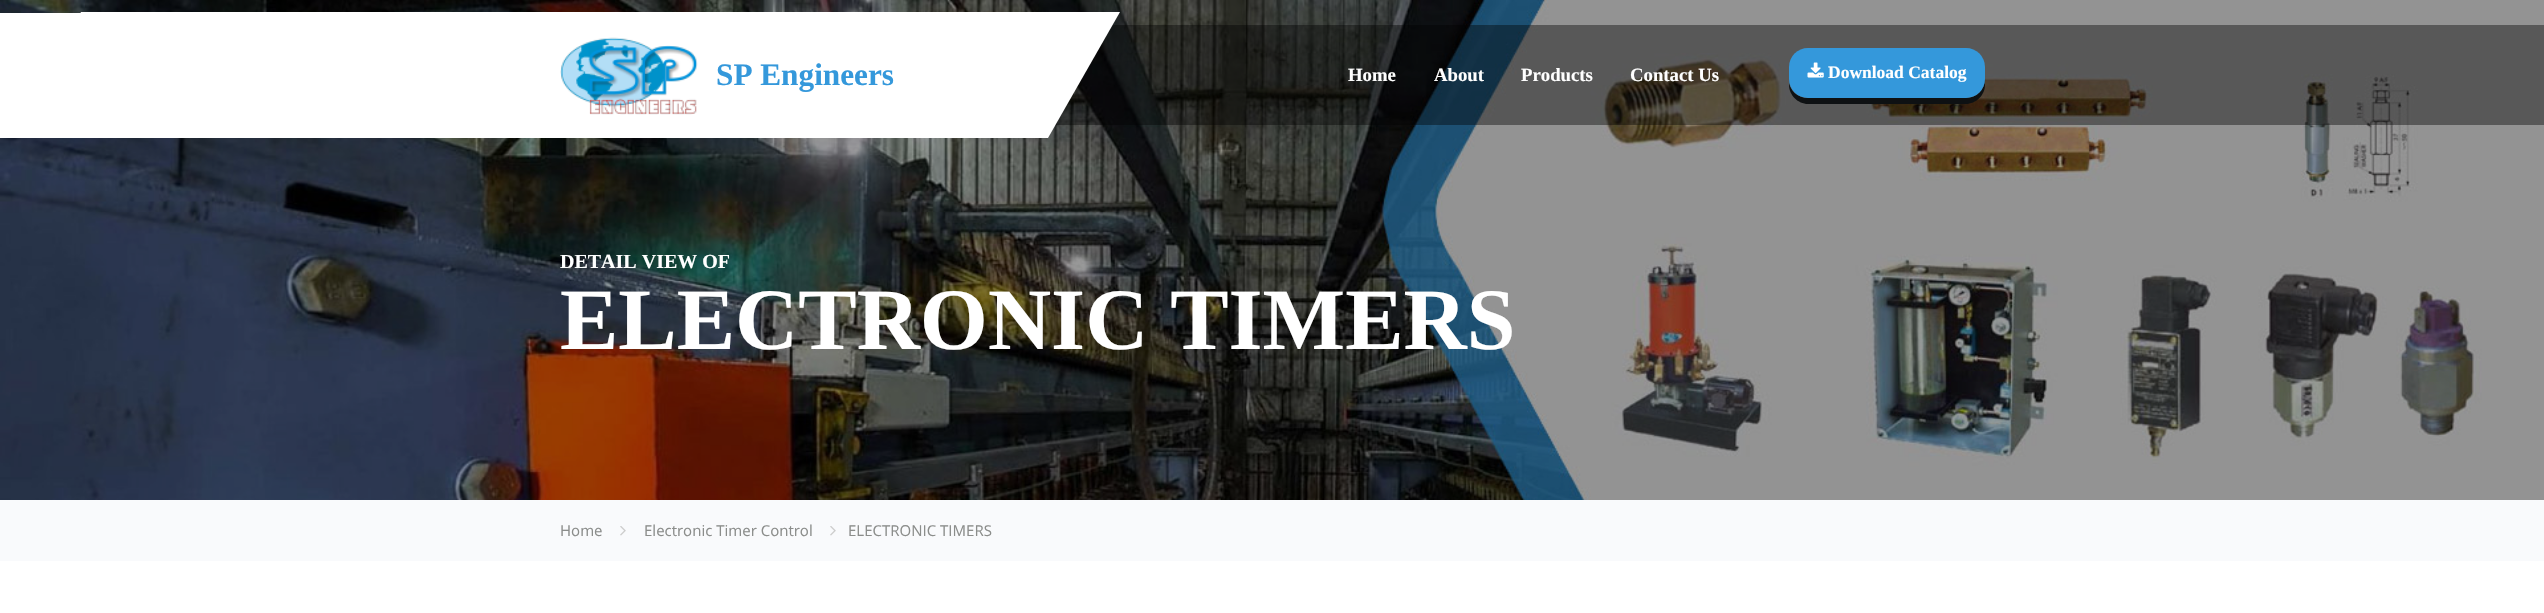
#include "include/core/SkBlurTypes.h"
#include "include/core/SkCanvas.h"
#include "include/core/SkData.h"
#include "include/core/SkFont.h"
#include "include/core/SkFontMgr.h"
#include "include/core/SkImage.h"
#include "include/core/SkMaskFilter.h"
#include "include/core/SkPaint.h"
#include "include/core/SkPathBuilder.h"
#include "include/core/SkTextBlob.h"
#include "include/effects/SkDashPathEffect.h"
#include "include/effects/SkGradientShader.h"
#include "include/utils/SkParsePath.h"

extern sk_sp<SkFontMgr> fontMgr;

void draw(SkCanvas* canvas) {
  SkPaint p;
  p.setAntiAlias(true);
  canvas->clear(SK_ColorWHITE);
  canvas->drawImageRect(SkImages::DeferredFromEncodedData(SkData::MakeFromFileName("images/3.png")), SkRect::MakeLTRB(0, 0, 2544, 500), SkSamplingOptions());
  p.setColor(SkColorSetARGB(102, 0, 0, 0));
  canvas->drawRect(SkRect::MakeLTRB(1055, 25, 2544, 125), p);
  p.setColor(SK_ColorWHITE);
  canvas->drawRect(SkRect::MakeLTRB(0, 13, 81, 138), p);
  canvas->drawPath(SkPathBuilder().moveTo(81, 12).lineTo(1120, 12).lineTo(1048, 138).lineTo(9, 138).close().detach(), p);
  canvas->drawImageRect(SkImages::DeferredFromEncodedData(SkData::MakeFromFileName("images/1.png")), SkRect::MakeLTRB(560, 37, 698, 115), SkSamplingOptions());
  p.setColor(SkColorSetRGB(14, 17, 19));
  canvas->drawPath(SkPathBuilder().moveTo(1789, 82).lineTo(1789, 85).cubicTo(1789, 95, 1798, 104, 1808, 104).lineTo(1966, 104).cubicTo(1976, 104, 1985, 95, 1985, 85).lineTo(1985, 79).cubicTo(1985, 89, 1977, 98, 1966, 98).lineTo(1808, 98).cubicTo(1798, 98, 1790, 91, 1789, 82).close().detach(), p);
  p.setColor(SkColorSetRGB(52, 152, 219));
  canvas->drawRoundRect(SkRect::MakeLTRB(1789, 48, 1985, 98), 19, 19, p);
  canvas->drawImageRect(SkImages::DeferredFromEncodedData(SkData::MakeFromFileName("images/2.png")), SkRect::MakeLTRB(1807, 62, 1824, 78), SkSamplingOptions());
  p.setColor(SkColorSetRGB(249, 250, 252));
  canvas->drawRect(SkRect::MakeLTRB(0, 500, 2544, 561), p);
  canvas->drawImageRect(SkImages::DeferredFromEncodedData(SkData::MakeFromFileName("images/4.png")), SkRect::MakeLTRB(620, 526, 626, 536), SkSamplingOptions());
  canvas->drawImageRect(SkImages::DeferredFromEncodedData(SkData::MakeFromFileName("images/4.png")), SkRect::MakeLTRB(830, 526, 836, 536), SkSamplingOptions());
  SkFont font1(fontMgr->matchFamilyStyle("Liberation Serif", SkFontStyle::Bold()), 31.25f);
  font1.setSubpixel(true);
  p.setColor(SkColorSetRGB(52, 152, 219));
  canvas->drawString("SP Engineers", 716, 85, font1, p);
  SkFont font2(fontMgr->matchFamilyStyle("Liberation Serif", SkFontStyle::Bold()), 18.75f);
  font2.setSubpixel(true);
  p.setColor(SK_ColorWHITE);
  canvas->drawString("Home", 1348, 81, font2, p);
  canvas->drawString("About", 1434, 81, font2, p);
  canvas->drawString("Products", 1521, 81, font2, p);
  canvas->drawString("Contact Us", 1630, 81, font2, p);
  SkFont font3(fontMgr->matchFamilyStyle("Liberation Serif", SkFontStyle::Bold()), 17.5f);
  font3.setSubpixel(true);
  canvas->drawString("Download Catalog", 1828, 78, font3, p);
  SkFont font4(fontMgr->matchFamilyStyle("Liberation Serif", SkFontStyle::Bold()), 20);
  font4.setSubpixel(true);
  canvas->drawString("DETAIL VIEW OF", 560, 268, font4, p);
  SkFont font5(fontMgr->matchFamilyStyle("Liberation Serif", SkFontStyle::Bold()), 87.5f);
  font5.setSubpixel(true);
  canvas->drawString("ELECTRONIC TIMERS", 560, 349, font5, p);
  SkFont font6(fontMgr->matchFamilyStyle("Open Sans", SkFontStyle::Normal()), 15);
  font6.setSubpixel(true);
  p.setColor(SkColorSetRGB(139, 141, 139));
  canvas->drawString("Home", 560, 536, font6, p);
  canvas->drawString("Electronic Timer Control", 644, 536, font6, p);
  canvas->drawString("ELECTRONIC TIMERS", 848, 536, font6, p);
}
